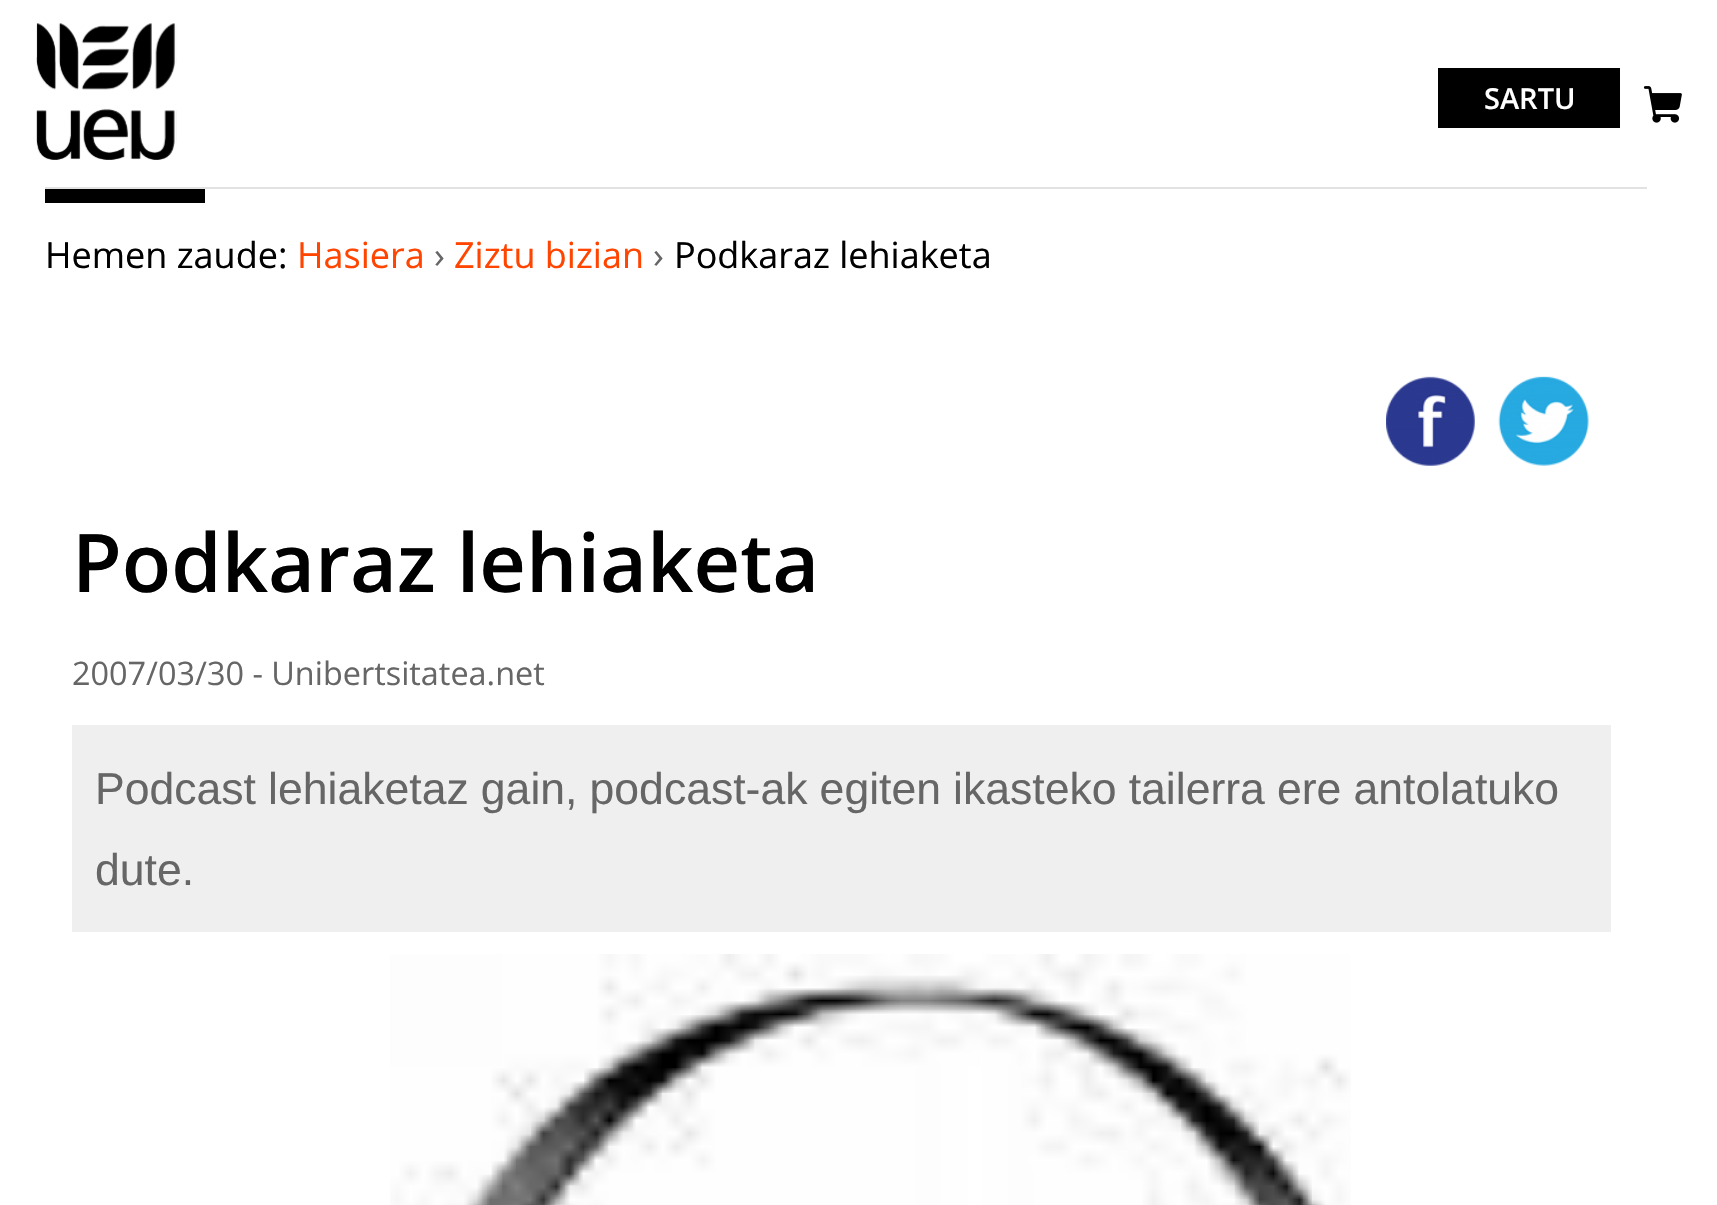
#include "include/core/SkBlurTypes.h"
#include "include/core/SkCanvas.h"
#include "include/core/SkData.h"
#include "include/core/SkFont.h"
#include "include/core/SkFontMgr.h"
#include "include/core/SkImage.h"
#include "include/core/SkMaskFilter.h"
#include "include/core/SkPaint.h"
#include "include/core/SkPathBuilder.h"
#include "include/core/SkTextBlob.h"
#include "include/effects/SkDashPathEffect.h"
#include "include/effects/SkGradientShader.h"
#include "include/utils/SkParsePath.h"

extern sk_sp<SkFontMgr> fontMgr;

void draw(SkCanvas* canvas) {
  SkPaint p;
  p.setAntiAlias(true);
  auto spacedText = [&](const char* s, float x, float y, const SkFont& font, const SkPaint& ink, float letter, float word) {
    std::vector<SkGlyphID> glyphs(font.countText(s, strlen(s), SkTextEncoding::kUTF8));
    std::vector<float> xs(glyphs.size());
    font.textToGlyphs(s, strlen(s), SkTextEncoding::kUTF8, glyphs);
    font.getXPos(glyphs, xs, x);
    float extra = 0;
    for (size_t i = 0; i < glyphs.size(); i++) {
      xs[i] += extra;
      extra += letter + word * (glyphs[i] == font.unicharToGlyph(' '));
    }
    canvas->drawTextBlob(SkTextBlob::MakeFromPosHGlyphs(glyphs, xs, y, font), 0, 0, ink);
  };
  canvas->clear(SK_ColorWHITE);
  canvas->drawImageRect(SkImages::DeferredFromEncodedData(SkData::MakeFromFileName("images/1.png")), SkRect::MakeLTRB(36, 23, 177, 160), SkSamplingOptions());
  p.setColor(SK_ColorBLACK);
  canvas->drawRect(SkRect::MakeLTRB(1438, 68, 1620, 128), p);
  canvas->drawImageRect(SkImages::DeferredFromEncodedData(SkData::MakeFromFileName("images/2.png")), SkRect::MakeLTRB(1643, 86, 1682, 123), SkSamplingOptions());
  p.setColor(SkColorSetRGB(226, 226, 226));
  canvas->drawRect(SkRect::MakeLTRB(45, 187, 1647, 189), p);
  p.setColor(SK_ColorBLACK);
  canvas->drawRect(SkRect::MakeLTRB(45, 189, 205, 203), p);
  canvas->drawImageRect(SkImages::DeferredFromEncodedData(SkData::MakeFromFileName("images/3.png")), SkRect::MakeLTRB(1386, 376, 1475, 466), SkSamplingOptions());
  canvas->drawImageRect(SkImages::DeferredFromEncodedData(SkData::MakeFromFileName("images/4.png")), SkRect::MakeLTRB(1498, 376, 1589, 466), SkSamplingOptions());
  p.setColor(SkColorSetRGB(239, 239, 239));
  canvas->drawRect(SkRect::MakeLTRB(72, 725, 1611, 932), p);
  canvas->drawImageRect(SkImages::DeferredFromEncodedData(SkData::MakeFromFileName("images/5.png")), SkRect::MakeLTRB(390, 954, 1351, 1205), SkSamplingOptions());
  SkFont font1(fontMgr->matchFamilyStyle("Open Sans", SkFontStyle(600, SkFontStyle::kNormal_Width, SkFontStyle::kUpright_Slant)), 29);
  font1.setSubpixel(true);
  p.setColor(SK_ColorWHITE);
  canvas->drawString("SARTU", 1484, 109, font1, p);
  SkFont font2(fontMgr->matchFamilyStyle("Open Sans", SkFontStyle::Normal()), 36);
  font2.setSubpixel(true);
  p.setColor(SK_ColorBLACK);
  canvas->drawString("Hemen zaude:", 45, 268, font2, p);
  p.setColor(SkColorSetRGB(255, 69, 0));
  canvas->drawString("Hasiera", 297, 268, font2, p);
  p.setColor(SkColorSetRGB(102, 102, 102));
  canvas->drawString("›", 434, 268, font2, p);
  p.setColor(SkColorSetRGB(255, 69, 0));
  canvas->drawString("Ziztu bizian", 454, 268, font2, p);
  p.setColor(SkColorSetRGB(102, 102, 102));
  canvas->drawString("›", 653, 268, font2, p);
  p.setColor(SK_ColorBLACK);
  canvas->drawString("Podkaraz lehiaketa", 674, 268, font2, p);
  SkFont font3(fontMgr->matchFamilyStyle("Open Sans", SkFontStyle(600, SkFontStyle::kNormal_Width, SkFontStyle::kUpright_Slant)), 81);
  font3.setSubpixel(true);
  canvas->drawString("Podkaraz lehiaketa", 72, 592, font3, p);
  SkFont font4(fontMgr->matchFamilyStyle("Open Sans", SkFontStyle::Normal()), 32.4f);
  font4.setSubpixel(true);
  p.setColor(SkColorSetRGB(102, 102, 102));
  canvas->drawString("2007/03/30 - Unibertsitatea.net", 72, 685, font4, p);
  SkFont font5(fontMgr->matchFamilyStyle("Liberation Sans", SkFontStyle::Normal()), 44.55f);
  font5.setSubpixel(true);
  spacedText("Podcast lehiaketaz gain, podcast-ak egiten ikasteko tailerra ere antolatuko", 95, 804, font5, p, 0, -0.25f);
  canvas->drawString("dute.", 95, 885, font5, p);
}
